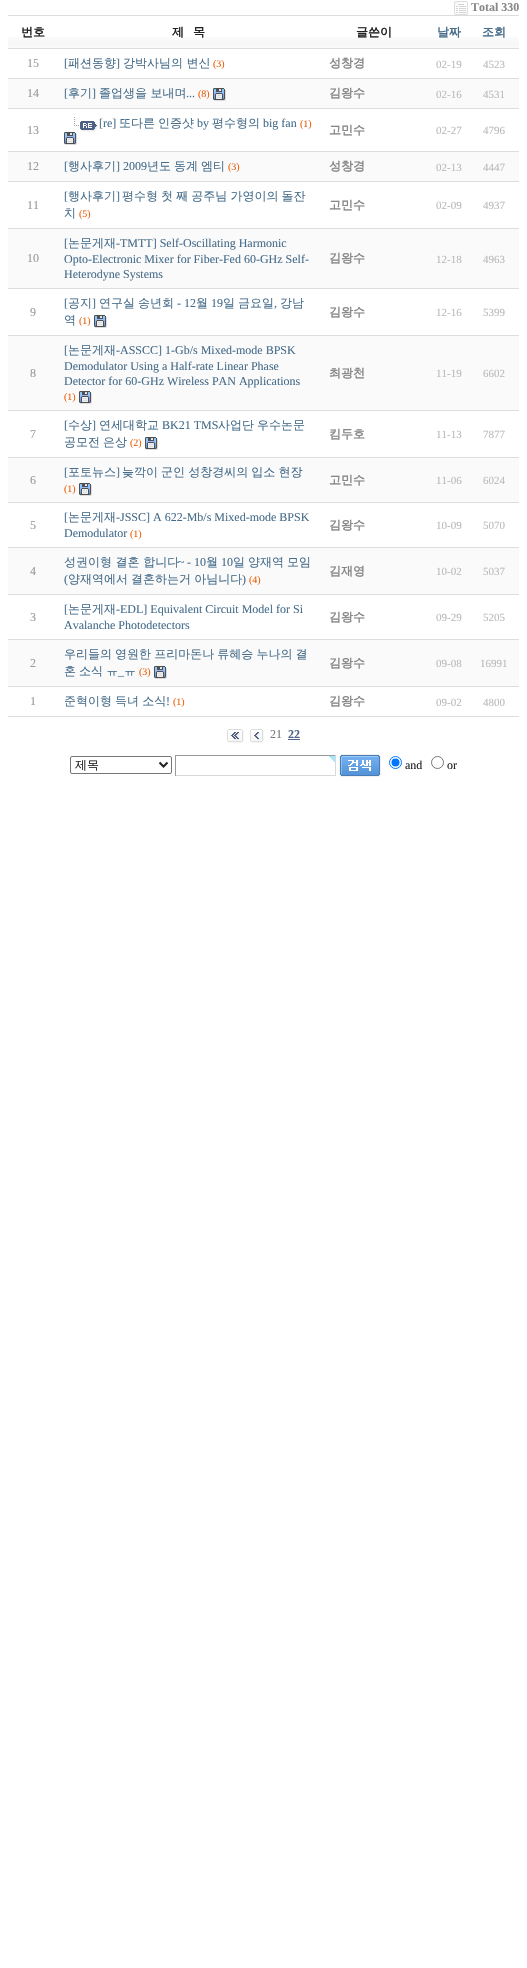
#include "include/core/SkBlurTypes.h"
#include "include/core/SkCanvas.h"
#include "include/core/SkData.h"
#include "include/core/SkFont.h"
#include "include/core/SkFontMgr.h"
#include "include/core/SkImage.h"
#include "include/core/SkMaskFilter.h"
#include "include/core/SkPaint.h"
#include "include/core/SkPathBuilder.h"
#include "include/core/SkTextBlob.h"
#include "include/effects/SkDashPathEffect.h"
#include "include/effects/SkGradientShader.h"
#include "include/utils/SkParsePath.h"

extern sk_sp<SkFontMgr> fontMgr;

void draw(SkCanvas* canvas) {
  SkPaint p;
  p.setAntiAlias(true);
  auto spacedText = [&](const char* s, float x, float y, const SkFont& font, const SkPaint& ink, float letter, float word) {
    std::vector<SkGlyphID> glyphs(font.countText(s, strlen(s), SkTextEncoding::kUTF8));
    std::vector<float> xs(glyphs.size());
    font.textToGlyphs(s, strlen(s), SkTextEncoding::kUTF8, glyphs);
    font.getXPos(glyphs, xs, x);
    float extra = 0;
    for (size_t i = 0; i < glyphs.size(); i++) {
      xs[i] += extra;
      extra += letter + word * (glyphs[i] == font.unicharToGlyph(' '));
    }
    canvas->drawTextBlob(SkTextBlob::MakeFromPosHGlyphs(glyphs, xs, y, font), 0, 0, ink);
  };
  canvas->clear(SK_ColorWHITE);
  canvas->drawImageRect(SkImages::DeferredFromEncodedData(SkData::MakeFromFileName("images/1.png")), SkRect::MakeLTRB(454, 1, 468, 15), SkSamplingOptions());
  canvas->drawImageRect(SkImages::DeferredFromEncodedData(SkData::MakeFromFileName("images/2.png")), SkRect::MakeLTRB(8, 37, 58, 48), SkSamplingOptions());
  p.setColor(SkColorSetRGB(221, 221, 221));
  canvas->drawRect(SkRect::MakeLTRB(8, 15, 519, 16), p);
  canvas->drawRect(SkRect::MakeLTRB(8, 48, 519, 49), p);
  canvas->drawImageRect(SkImages::DeferredFromEncodedData(SkData::MakeFromFileName("images/3.png")), SkRect::MakeLTRB(58, 37, 319, 48), SkSamplingOptions());
  canvas->drawImageRect(SkImages::DeferredFromEncodedData(SkData::MakeFromFileName("images/4.png")), SkRect::MakeLTRB(319, 37, 429, 48), SkSamplingOptions());
  canvas->drawImageRect(SkImages::DeferredFromEncodedData(SkData::MakeFromFileName("images/5.png")), SkRect::MakeLTRB(429, 37, 469, 48), SkSamplingOptions());
  canvas->drawImageRect(SkImages::DeferredFromEncodedData(SkData::MakeFromFileName("images/2.png")), SkRect::MakeLTRB(469, 37, 519, 48), SkSamplingOptions());
  canvas->drawRect(SkRect::MakeLTRB(8, 78, 58, 79), p);
  canvas->drawRect(SkRect::MakeLTRB(58, 78, 519, 79), p);
  p.setColor(SkColorSetRGB(250, 250, 250));
  canvas->drawRect(SkRect::MakeLTRB(8, 79, 519, 108), p);
  p.setColor(SkColorSetRGB(221, 221, 221));
  canvas->drawRect(SkRect::MakeLTRB(8, 108, 58, 109), p);
  canvas->drawImageRect(SkImages::DeferredFromEncodedData(SkData::MakeFromFileName("images/6.png")), SkRect::MakeLTRB(213, 88, 226, 101), SkSamplingOptions());
  canvas->drawRect(SkRect::MakeLTRB(58, 108, 519, 109), p);
  canvas->drawRect(SkRect::MakeLTRB(8, 151, 58, 152), p);
  canvas->drawImageRect(SkImages::DeferredFromEncodedData(SkData::MakeFromFileName("images/7.png")), SkRect::MakeLTRB(74, 117, 98, 132), SkSamplingOptions());
  canvas->drawImageRect(SkImages::DeferredFromEncodedData(SkData::MakeFromFileName("images/6.png")), SkRect::MakeLTRB(64, 132, 77, 145), SkSamplingOptions());
  canvas->drawRect(SkRect::MakeLTRB(58, 151, 519, 152), p);
  p.setColor(SkColorSetRGB(250, 250, 250));
  canvas->drawRect(SkRect::MakeLTRB(8, 152, 519, 181), p);
  p.setColor(SkColorSetRGB(221, 221, 221));
  canvas->drawRect(SkRect::MakeLTRB(8, 181, 58, 182), p);
  canvas->drawRect(SkRect::MakeLTRB(58, 181, 519, 182), p);
  canvas->drawRect(SkRect::MakeLTRB(8, 228, 58, 229), p);
  canvas->drawRect(SkRect::MakeLTRB(58, 228, 519, 229), p);
  p.setColor(SkColorSetRGB(250, 250, 250));
  canvas->drawRect(SkRect::MakeLTRB(8, 229, 519, 288), p);
  p.setColor(SkColorSetRGB(221, 221, 221));
  canvas->drawRect(SkRect::MakeLTRB(8, 288, 58, 289), p);
  canvas->drawRect(SkRect::MakeLTRB(58, 288, 519, 289), p);
  canvas->drawRect(SkRect::MakeLTRB(8, 335, 58, 336), p);
  canvas->drawImageRect(SkImages::DeferredFromEncodedData(SkData::MakeFromFileName("images/6.png")), SkRect::MakeLTRB(94, 315, 107, 328), SkSamplingOptions());
  canvas->drawRect(SkRect::MakeLTRB(58, 335, 519, 336), p);
  p.setColor(SkColorSetRGB(250, 250, 250));
  canvas->drawRect(SkRect::MakeLTRB(8, 336, 519, 410), p);
  p.setColor(SkColorSetRGB(221, 221, 221));
  canvas->drawRect(SkRect::MakeLTRB(8, 410, 58, 411), p);
  canvas->drawImageRect(SkImages::DeferredFromEncodedData(SkData::MakeFromFileName("images/6.png")), SkRect::MakeLTRB(79, 391, 92, 404), SkSamplingOptions());
  canvas->drawRect(SkRect::MakeLTRB(58, 410, 519, 411), p);
  canvas->drawRect(SkRect::MakeLTRB(8, 457, 58, 458), p);
  canvas->drawImageRect(SkImages::DeferredFromEncodedData(SkData::MakeFromFileName("images/6.png")), SkRect::MakeLTRB(145, 437, 158, 450), SkSamplingOptions());
  canvas->drawRect(SkRect::MakeLTRB(58, 457, 519, 458), p);
  p.setColor(SkColorSetRGB(250, 250, 250));
  canvas->drawRect(SkRect::MakeLTRB(8, 458, 519, 502), p);
  p.setColor(SkColorSetRGB(221, 221, 221));
  canvas->drawRect(SkRect::MakeLTRB(8, 502, 58, 503), p);
  canvas->drawImageRect(SkImages::DeferredFromEncodedData(SkData::MakeFromFileName("images/6.png")), SkRect::MakeLTRB(79, 483, 92, 496), SkSamplingOptions());
  canvas->drawRect(SkRect::MakeLTRB(58, 502, 519, 503), p);
  canvas->drawRect(SkRect::MakeLTRB(8, 547, 58, 548), p);
  canvas->drawRect(SkRect::MakeLTRB(58, 547, 519, 548), p);
  p.setColor(SkColorSetRGB(250, 250, 250));
  canvas->drawRect(SkRect::MakeLTRB(8, 548, 519, 594), p);
  p.setColor(SkColorSetRGB(221, 221, 221));
  canvas->drawRect(SkRect::MakeLTRB(8, 594, 58, 595), p);
  canvas->drawRect(SkRect::MakeLTRB(58, 594, 519, 595), p);
  canvas->drawRect(SkRect::MakeLTRB(8, 639, 58, 640), p);
  canvas->drawRect(SkRect::MakeLTRB(58, 639, 519, 640), p);
  p.setColor(SkColorSetRGB(250, 250, 250));
  canvas->drawRect(SkRect::MakeLTRB(8, 640, 519, 686), p);
  p.setColor(SkColorSetRGB(221, 221, 221));
  canvas->drawRect(SkRect::MakeLTRB(8, 686, 58, 687), p);
  canvas->drawImageRect(SkImages::DeferredFromEncodedData(SkData::MakeFromFileName("images/6.png")), SkRect::MakeLTRB(154, 666, 167, 679), SkSamplingOptions());
  canvas->drawRect(SkRect::MakeLTRB(58, 686, 519, 687), p);
  canvas->drawRect(SkRect::MakeLTRB(8, 716, 58, 717), p);
  canvas->drawRect(SkRect::MakeLTRB(58, 716, 519, 717), p);
  canvas->drawImageRect(SkImages::DeferredFromEncodedData(SkData::MakeFromFileName("images/8.png")), SkRect::MakeLTRB(227, 729, 244, 743), SkSamplingOptions());
  canvas->drawImageRect(SkImages::DeferredFromEncodedData(SkData::MakeFromFileName("images/9.png")), SkRect::MakeLTRB(250, 729, 264, 743), SkSamplingOptions());
  p.setColor(SkColorSetRGB(77, 97, 133));
  canvas->drawRect(SkRect::MakeLTRB(288, 739, 300, 740), p);
  p.setStyle(SkPaint::kStroke_Style);
  p.setStrokeWidth(1);
  p.setColor(SkColorSetRGB(118, 118, 118));
  canvas->drawRoundRect(SkRect::MakeLTRB(70.5f, 756.5f, 171.5f, 773.5f), 1.5f, 1.5f, p);
  p.setStrokeWidth(2);
  p.setColor(SkColorSetRGB(34, 34, 34));
  canvas->drawPath(SkPathBuilder().moveTo(159.5f, 762.5f).lineTo(163.5f, 766.5f).lineTo(167.5f, 762.5f).detach(), p);
  canvas->drawImageRect(SkImages::DeferredFromEncodedData(SkData::MakeFromFileName("images/10.png")), SkRect::MakeLTRB(329, 756, 335, 762), SkSamplingOptions());
  p.setStyle(SkPaint::kFill_Style);
  p.setColor(SkColorSetRGB(154, 154, 154));
  canvas->drawRect(SkRect::MakeLTRB(175, 755, 336, 756), p);
  p.setColor(SkColorSetRGB(216, 216, 216));
  canvas->drawRect(SkRect::MakeLTRB(335, 755, 336, 776), p);
  canvas->drawRect(SkRect::MakeLTRB(175, 775, 336, 776), p);
  p.setColor(SkColorSetRGB(154, 154, 154));
  canvas->drawRect(SkRect::MakeLTRB(175, 755, 176, 776), p);
  canvas->drawImageRect(SkImages::DeferredFromEncodedData(SkData::MakeFromFileName("images/11.png")), SkRect::MakeLTRB(339, 754, 381, 777), SkSamplingOptions());
  p.setStyle(SkPaint::kStroke_Style);
  p.setStrokeWidth(1);
  p.setColor(SkColorSetRGB(0, 117, 255));
  canvas->drawCircle(395.5f, 762.5f, 6, p);
  p.setStyle(SkPaint::kFill_Style);
  canvas->drawCircle(395.5f, 762.5f, 4, p);
  p.setStyle(SkPaint::kStroke_Style);
  p.setColor(SkColorSetRGB(118, 118, 118));
  canvas->drawCircle(437.5f, 762.5f, 6, p);
  SkFont font1(fontMgr->matchFamilyStyle("Liberation Serif", SkFontStyle::Bold()), 12);
  font1.setSubpixel(true);
  p.setStyle(SkPaint::kFill_Style);
  p.setColor(SkColorSetRGB(136, 136, 136));
  canvas->drawString("Total 330", 471, 11, font1, p);
  SkFont font2(fontMgr->matchFamilyStyle("WenQuanYi Zen Hei", SkFontStyle::Bold()), 12);
  font2.setSubpixel(true);
  p.setColor(SkColorSetRGB(34, 34, 34));
  canvas->drawString("번호", 21, 36, font2, p);
  canvas->drawString("제", 172, 36, font2, p);
  canvas->drawString("목", 193, 36, font2, p);
  canvas->drawString("글쓴이", 356, 36, font2, p);
  p.setColor(SkColorSetRGB(70, 108, 138));
  canvas->drawString("날짜", 437, 36, font2, p);
  canvas->drawString("조회", 482, 36, font2, p);
  SkFont font3(fontMgr->matchFamilyStyle("Liberation Serif", SkFontStyle::Normal()), 12);
  font3.setSubpixel(true);
  p.setColor(SkColorSetRGB(153, 153, 153));
  canvas->drawString("15", 27, 67, font3, p);
  p.setColor(SkColorSetRGB(70, 108, 138));
  canvas->drawString("[", 64, 67, font3, p);
  SkFont font4(fontMgr->matchFamilyStyle("WenQuanYi Zen Hei", SkFontStyle(500, SkFontStyle::kNormal_Width, SkFontStyle::kUpright_Slant)), 12);
  font4.setSubpixel(true);
  canvas->drawString("패션동향", 68, 67, font4, p);
  canvas->drawString("]", 116, 67, font3, p);
  canvas->drawString("강박사님의 변신", 123, 67, font4, p);
  SkFont font5(fontMgr->matchFamilyStyle("Liberation Serif", SkFontStyle::Normal()), 10);
  font5.setSubpixel(true);
  p.setColor(SkColorSetRGB(238, 90, 0));
  canvas->drawString("(3)", 213, 67, font5, p);
  p.setColor(SkColorSetRGB(136, 136, 136));
  canvas->drawString("성창경", 329, 67, font2, p);
  SkFont font6(fontMgr->matchFamilyStyle("Liberation Serif", SkFontStyle::Normal()), 11);
  font6.setSubpixel(true);
  p.setColor(SkColorSetRGB(186, 186, 186));
  canvas->drawString("02-19", 436, 68, font6, p);
  canvas->drawString("4523", 483, 68, font6, p);
  p.setColor(SkColorSetRGB(153, 153, 153));
  canvas->drawString("14", 27, 97, font3, p);
  p.setColor(SkColorSetRGB(70, 108, 138));
  canvas->drawString("[", 64, 97, font3, p);
  canvas->drawString("후기", 68, 97, font4, p);
  canvas->drawString("]", 92, 97, font3, p);
  canvas->drawString("졸업생을 보내며", 99, 97, font4, p);
  canvas->drawString("...", 186, 97, font3, p);
  p.setColor(SkColorSetRGB(238, 90, 0));
  canvas->drawString("(8)", 198, 97, font5, p);
  p.setColor(SkColorSetRGB(136, 136, 136));
  canvas->drawString("김왕수", 329, 97, font2, p);
  p.setColor(SkColorSetRGB(186, 186, 186));
  canvas->drawString("02-16", 436, 98, font6, p);
  canvas->drawString("4531", 483, 98, font6, p);
  p.setColor(SkColorSetRGB(153, 153, 153));
  canvas->drawString("13", 27, 134, font3, p);
  p.setColor(SkColorSetRGB(70, 108, 138));
  canvas->drawString("[re]", 99, 127, font3, p);
  canvas->drawString("또다른", 119, 127, font4, p);
  canvas->drawString("인증샷", 158, 127, font4, p);
  canvas->drawString("by", 197, 127, font3, p);
  canvas->drawString("평수형의", 212, 127, font4, p);
  canvas->drawString("big fan", 263, 127, font3, p);
  p.setColor(SkColorSetRGB(238, 90, 0));
  canvas->drawString("(1)", 300, 127, font5, p);
  p.setColor(SkColorSetRGB(136, 136, 136));
  canvas->drawString("고민수", 329, 134, font2, p);
  p.setColor(SkColorSetRGB(186, 186, 186));
  canvas->drawString("02-27", 436, 134, font6, p);
  canvas->drawString("4796", 483, 134, font6, p);
  p.setColor(SkColorSetRGB(153, 153, 153));
  canvas->drawString("12", 27, 170, font3, p);
  p.setColor(SkColorSetRGB(70, 108, 138));
  canvas->drawString("[", 64, 170, font3, p);
  canvas->drawString("행사후기", 68, 170, font4, p);
  canvas->drawString("] 2009", 116, 170, font3, p);
  canvas->drawString("년도", 147, 170, font4, p);
  canvas->drawString("동계", 174, 170, font4, p);
  canvas->drawString("엠티", 201, 170, font4, p);
  p.setColor(SkColorSetRGB(238, 90, 0));
  canvas->drawString("(3)", 228, 170, font5, p);
  p.setColor(SkColorSetRGB(136, 136, 136));
  canvas->drawString("성창경", 329, 170, font2, p);
  p.setColor(SkColorSetRGB(186, 186, 186));
  canvas->drawString("02-13", 436, 171, font6, p);
  canvas->drawString("4447", 483, 171, font6, p);
  p.setColor(SkColorSetRGB(153, 153, 153));
  canvas->drawString("11", 27, 209, font3, p);
  p.setColor(SkColorSetRGB(70, 108, 138));
  canvas->drawString("[", 64, 200, font3, p);
  canvas->drawString("행사후기", 68, 200, font4, p);
  canvas->drawString("]", 116, 200, font3, p);
  spacedText("평수형 첫 째 공주님 가영이의 돌잔", 122, 200, font4, p, 0, -0.5f);
  canvas->drawString("치", 64, 217, font4, p);
  p.setColor(SkColorSetRGB(238, 90, 0));
  canvas->drawString("(5)", 79, 217, font5, p);
  p.setColor(SkColorSetRGB(136, 136, 136));
  canvas->drawString("고민수", 329, 209, font2, p);
  p.setColor(SkColorSetRGB(186, 186, 186));
  canvas->drawString("02-09", 436, 209, font6, p);
  canvas->drawString("4937", 483, 209, font6, p);
  p.setColor(SkColorSetRGB(153, 153, 153));
  canvas->drawString("10", 27, 262, font3, p);
  p.setColor(SkColorSetRGB(70, 108, 138));
  canvas->drawString("[", 64, 247, font3, p);
  canvas->drawString("논문게재", 68, 247, font4, p);
  canvas->drawString("-TMTT] Self-Oscillating Harmonic", 116, 247, font3, p);
  canvas->drawString("Opto-Electronic Mixer for Fiber-Fed 60-GHz Self-", 64, 263, font3, p);
  canvas->drawString("Heterodyne Systems", 64, 278, font3, p);
  p.setColor(SkColorSetRGB(136, 136, 136));
  canvas->drawString("김왕수", 329, 262, font2, p);
  p.setColor(SkColorSetRGB(186, 186, 186));
  canvas->drawString("12-18", 436, 263, font6, p);
  canvas->drawString("4963", 483, 263, font6, p);
  p.setColor(SkColorSetRGB(153, 153, 153));
  canvas->drawString("9", 30, 316, font3, p);
  p.setColor(SkColorSetRGB(70, 108, 138));
  canvas->drawString("[", 64, 307, font3, p);
  canvas->drawString("공지", 68, 307, font4, p);
  canvas->drawString("]", 92, 307, font3, p);
  canvas->drawString("연구실", 99, 307, font4, p);
  canvas->drawString("송년회", 138, 307, font4, p);
  canvas->drawString("- 12", 177, 307, font3, p);
  canvas->drawString("월", 196, 307, font4, p);
  canvas->drawString("19", 211, 307, font3, p);
  canvas->drawString("일", 223, 307, font4, p);
  canvas->drawString("금요일", 238, 307, font4, p);
  canvas->drawString(",", 274, 307, font3, p);
  canvas->drawString("강남", 280, 307, font4, p);
  canvas->drawString("역", 64, 324, font4, p);
  p.setColor(SkColorSetRGB(238, 90, 0));
  canvas->drawString("(1)", 79, 324, font5, p);
  p.setColor(SkColorSetRGB(136, 136, 136));
  canvas->drawString("김왕수", 329, 316, font2, p);
  p.setColor(SkColorSetRGB(186, 186, 186));
  canvas->drawString("12-16", 436, 316, font6, p);
  canvas->drawString("5399", 483, 316, font6, p);
  p.setColor(SkColorSetRGB(153, 153, 153));
  canvas->drawString("8", 30, 377, font3, p);
  p.setColor(SkColorSetRGB(70, 108, 138));
  canvas->drawString("[", 64, 354, font3, p);
  canvas->drawString("논문게재", 68, 354, font4, p);
  canvas->drawString("-ASSCC] 1-Gb/s Mixed-mode BPSK", 116, 354, font3, p);
  canvas->drawString("Demodulator Using a Half-rate Linear Phase", 64, 370, font3, p);
  canvas->drawString("Detector for 60-GHz Wireless PAN Applications", 64, 385, font3, p);
  p.setColor(SkColorSetRGB(238, 90, 0));
  canvas->drawString("(1)", 64, 400, font5, p);
  p.setColor(SkColorSetRGB(136, 136, 136));
  canvas->drawString("최광천", 329, 377, font2, p);
  p.setColor(SkColorSetRGB(186, 186, 186));
  canvas->drawString("11-19", 436, 377, font6, p);
  canvas->drawString("6602", 483, 377, font6, p);
  p.setColor(SkColorSetRGB(153, 153, 153));
  canvas->drawString("7", 30, 438, font3, p);
  p.setColor(SkColorSetRGB(70, 108, 138));
  canvas->drawString("[", 64, 429, font3, p);
  canvas->drawString("수상", 68, 429, font4, p);
  canvas->drawString("]", 92, 429, font3, p);
  canvas->drawString("연세대학교", 99, 429, font4, p);
  canvas->drawString("BK21 TMS", 162, 429, font3, p);
  canvas->drawString("사업단", 218, 429, font4, p);
  canvas->drawString("우수논문", 257, 429, font4, p);
  spacedText("공모전 은상", 64, 446, font4, p, 0, -0.5f);
  p.setColor(SkColorSetRGB(238, 90, 0));
  canvas->drawString("(2)", 130, 446, font5, p);
  p.setColor(SkColorSetRGB(136, 136, 136));
  canvas->drawString("킴두호", 329, 438, font2, p);
  p.setColor(SkColorSetRGB(186, 186, 186));
  canvas->drawString("11-13", 436, 438, font6, p);
  canvas->drawString("7877", 483, 438, font6, p);
  p.setColor(SkColorSetRGB(153, 153, 153));
  canvas->drawString("6", 30, 484, font3, p);
  p.setColor(SkColorSetRGB(70, 108, 138));
  canvas->drawString("[", 64, 476, font3, p);
  canvas->drawString("포토뉴스", 68, 476, font4, p);
  canvas->drawString("]", 116, 476, font3, p);
  spacedText("늦깍이 군인 성창경씨의 입소 현장", 122, 476, font4, p, 0, -0.5f);
  p.setColor(SkColorSetRGB(238, 90, 0));
  canvas->drawString("(1)", 64, 492, font5, p);
  p.setColor(SkColorSetRGB(136, 136, 136));
  canvas->drawString("고민수", 329, 484, font2, p);
  p.setColor(SkColorSetRGB(186, 186, 186));
  canvas->drawString("11-06", 436, 484, font6, p);
  canvas->drawString("6024", 483, 484, font6, p);
  p.setColor(SkColorSetRGB(153, 153, 153));
  canvas->drawString("5", 30, 529, font3, p);
  p.setColor(SkColorSetRGB(70, 108, 138));
  canvas->drawString("[", 64, 521, font3, p);
  canvas->drawString("논문게재", 68, 521, font4, p);
  canvas->drawString("-JSSC] A 622-Mb/s Mixed-mode BPSK", 116, 521, font3, p);
  canvas->drawString("Demodulator", 64, 537, font3, p);
  p.setColor(SkColorSetRGB(238, 90, 0));
  canvas->drawString("(1)", 130, 537, font5, p);
  p.setColor(SkColorSetRGB(136, 136, 136));
  canvas->drawString("김왕수", 329, 529, font2, p);
  p.setColor(SkColorSetRGB(186, 186, 186));
  canvas->drawString("10-09", 436, 529, font6, p);
  canvas->drawString("5070", 483, 529, font6, p);
  p.setColor(SkColorSetRGB(153, 153, 153));
  canvas->drawString("4", 30, 575, font3, p);
  p.setColor(SkColorSetRGB(70, 108, 138));
  canvas->drawString("성권이형 결혼 합니다", 64, 566, font4, p);
  canvas->drawString("~", 178, 566, font3, p);
  canvas->drawString("- 10", 187, 566, font3, p);
  canvas->drawString("월", 206, 566, font4, p);
  canvas->drawString("10", 221, 566, font3, p);
  canvas->drawString("일", 233, 566, font4, p);
  canvas->drawString("양재역", 248, 566, font4, p);
  canvas->drawString("모임", 287, 566, font4, p);
  canvas->drawString("(", 64, 583, font3, p);
  spacedText("양재역에서 결혼하는거 아님니다", 68, 583, font4, p, 0, -0.5f);
  canvas->drawString(")", 242, 583, font3, p);
  p.setColor(SkColorSetRGB(238, 90, 0));
  canvas->drawString("(4)", 249, 583, font5, p);
  p.setColor(SkColorSetRGB(136, 136, 136));
  canvas->drawString("김재영", 329, 575, font2, p);
  p.setColor(SkColorSetRGB(186, 186, 186));
  canvas->drawString("10-02", 436, 575, font6, p);
  canvas->drawString("5037", 483, 575, font6, p);
  p.setColor(SkColorSetRGB(153, 153, 153));
  canvas->drawString("3", 30, 621, font3, p);
  p.setColor(SkColorSetRGB(70, 108, 138));
  canvas->drawString("[", 64, 613, font3, p);
  canvas->drawString("논문게재", 68, 613, font4, p);
  canvas->drawString("-EDL] Equivalent Circuit Model for Si", 116, 613, font3, p);
  canvas->drawString("Avalanche Photodetectors", 64, 629, font3, p);
  p.setColor(SkColorSetRGB(136, 136, 136));
  canvas->drawString("김왕수", 329, 621, font2, p);
  p.setColor(SkColorSetRGB(186, 186, 186));
  canvas->drawString("09-29", 436, 621, font6, p);
  canvas->drawString("5205", 483, 621, font6, p);
  p.setColor(SkColorSetRGB(153, 153, 153));
  canvas->drawString("2", 30, 667, font3, p);
  p.setColor(SkColorSetRGB(70, 108, 138));
  spacedText("우리들의 영원한 프리마돈나 류혜승 누나의 결", 64, 658, font4, p, 0, -0.5f);
  spacedText("혼 소식 ㅠ", 64, 675, font4, p, 0, -0.5f);
  canvas->drawString("_", 118, 675, font3, p);
  canvas->drawString("ㅠ", 124, 675, font4, p);
  p.setColor(SkColorSetRGB(238, 90, 0));
  canvas->drawString("(3)", 139, 675, font5, p);
  p.setColor(SkColorSetRGB(136, 136, 136));
  canvas->drawString("김왕수", 329, 667, font2, p);
  p.setColor(SkColorSetRGB(186, 186, 186));
  canvas->drawString("09-08", 436, 667, font6, p);
  canvas->drawString("16991", 480, 667, font6, p);
  p.setColor(SkColorSetRGB(153, 153, 153));
  canvas->drawString("1", 30, 705, font3, p);
  p.setColor(SkColorSetRGB(70, 108, 138));
  spacedText("준혁이형 득녀 소식", 64, 705, font4, p, 0, -0.5f);
  canvas->drawString("!", 166, 705, font3, p);
  p.setColor(SkColorSetRGB(238, 90, 0));
  canvas->drawString("(1)", 173, 705, font5, p);
  p.setColor(SkColorSetRGB(136, 136, 136));
  canvas->drawString("김왕수", 329, 705, font2, p);
  p.setColor(SkColorSetRGB(186, 186, 186));
  canvas->drawString("09-02", 436, 706, font6, p);
  canvas->drawString("4800", 483, 706, font6, p);
  p.setColor(SkColorSetRGB(119, 119, 119));
  canvas->drawString("21", 270, 738, font3, p);
  p.setColor(SkColorSetRGB(77, 97, 133));
  canvas->drawString("22", 288, 738, font1, p);
  p.setColor(SkColorSetRGB(34, 34, 34));
  canvas->drawString("제목", 75, 769, font4, p);
  canvas->drawString("and", 405, 769, font3, p);
  canvas->drawString("or", 447, 769, font3, p);
}
